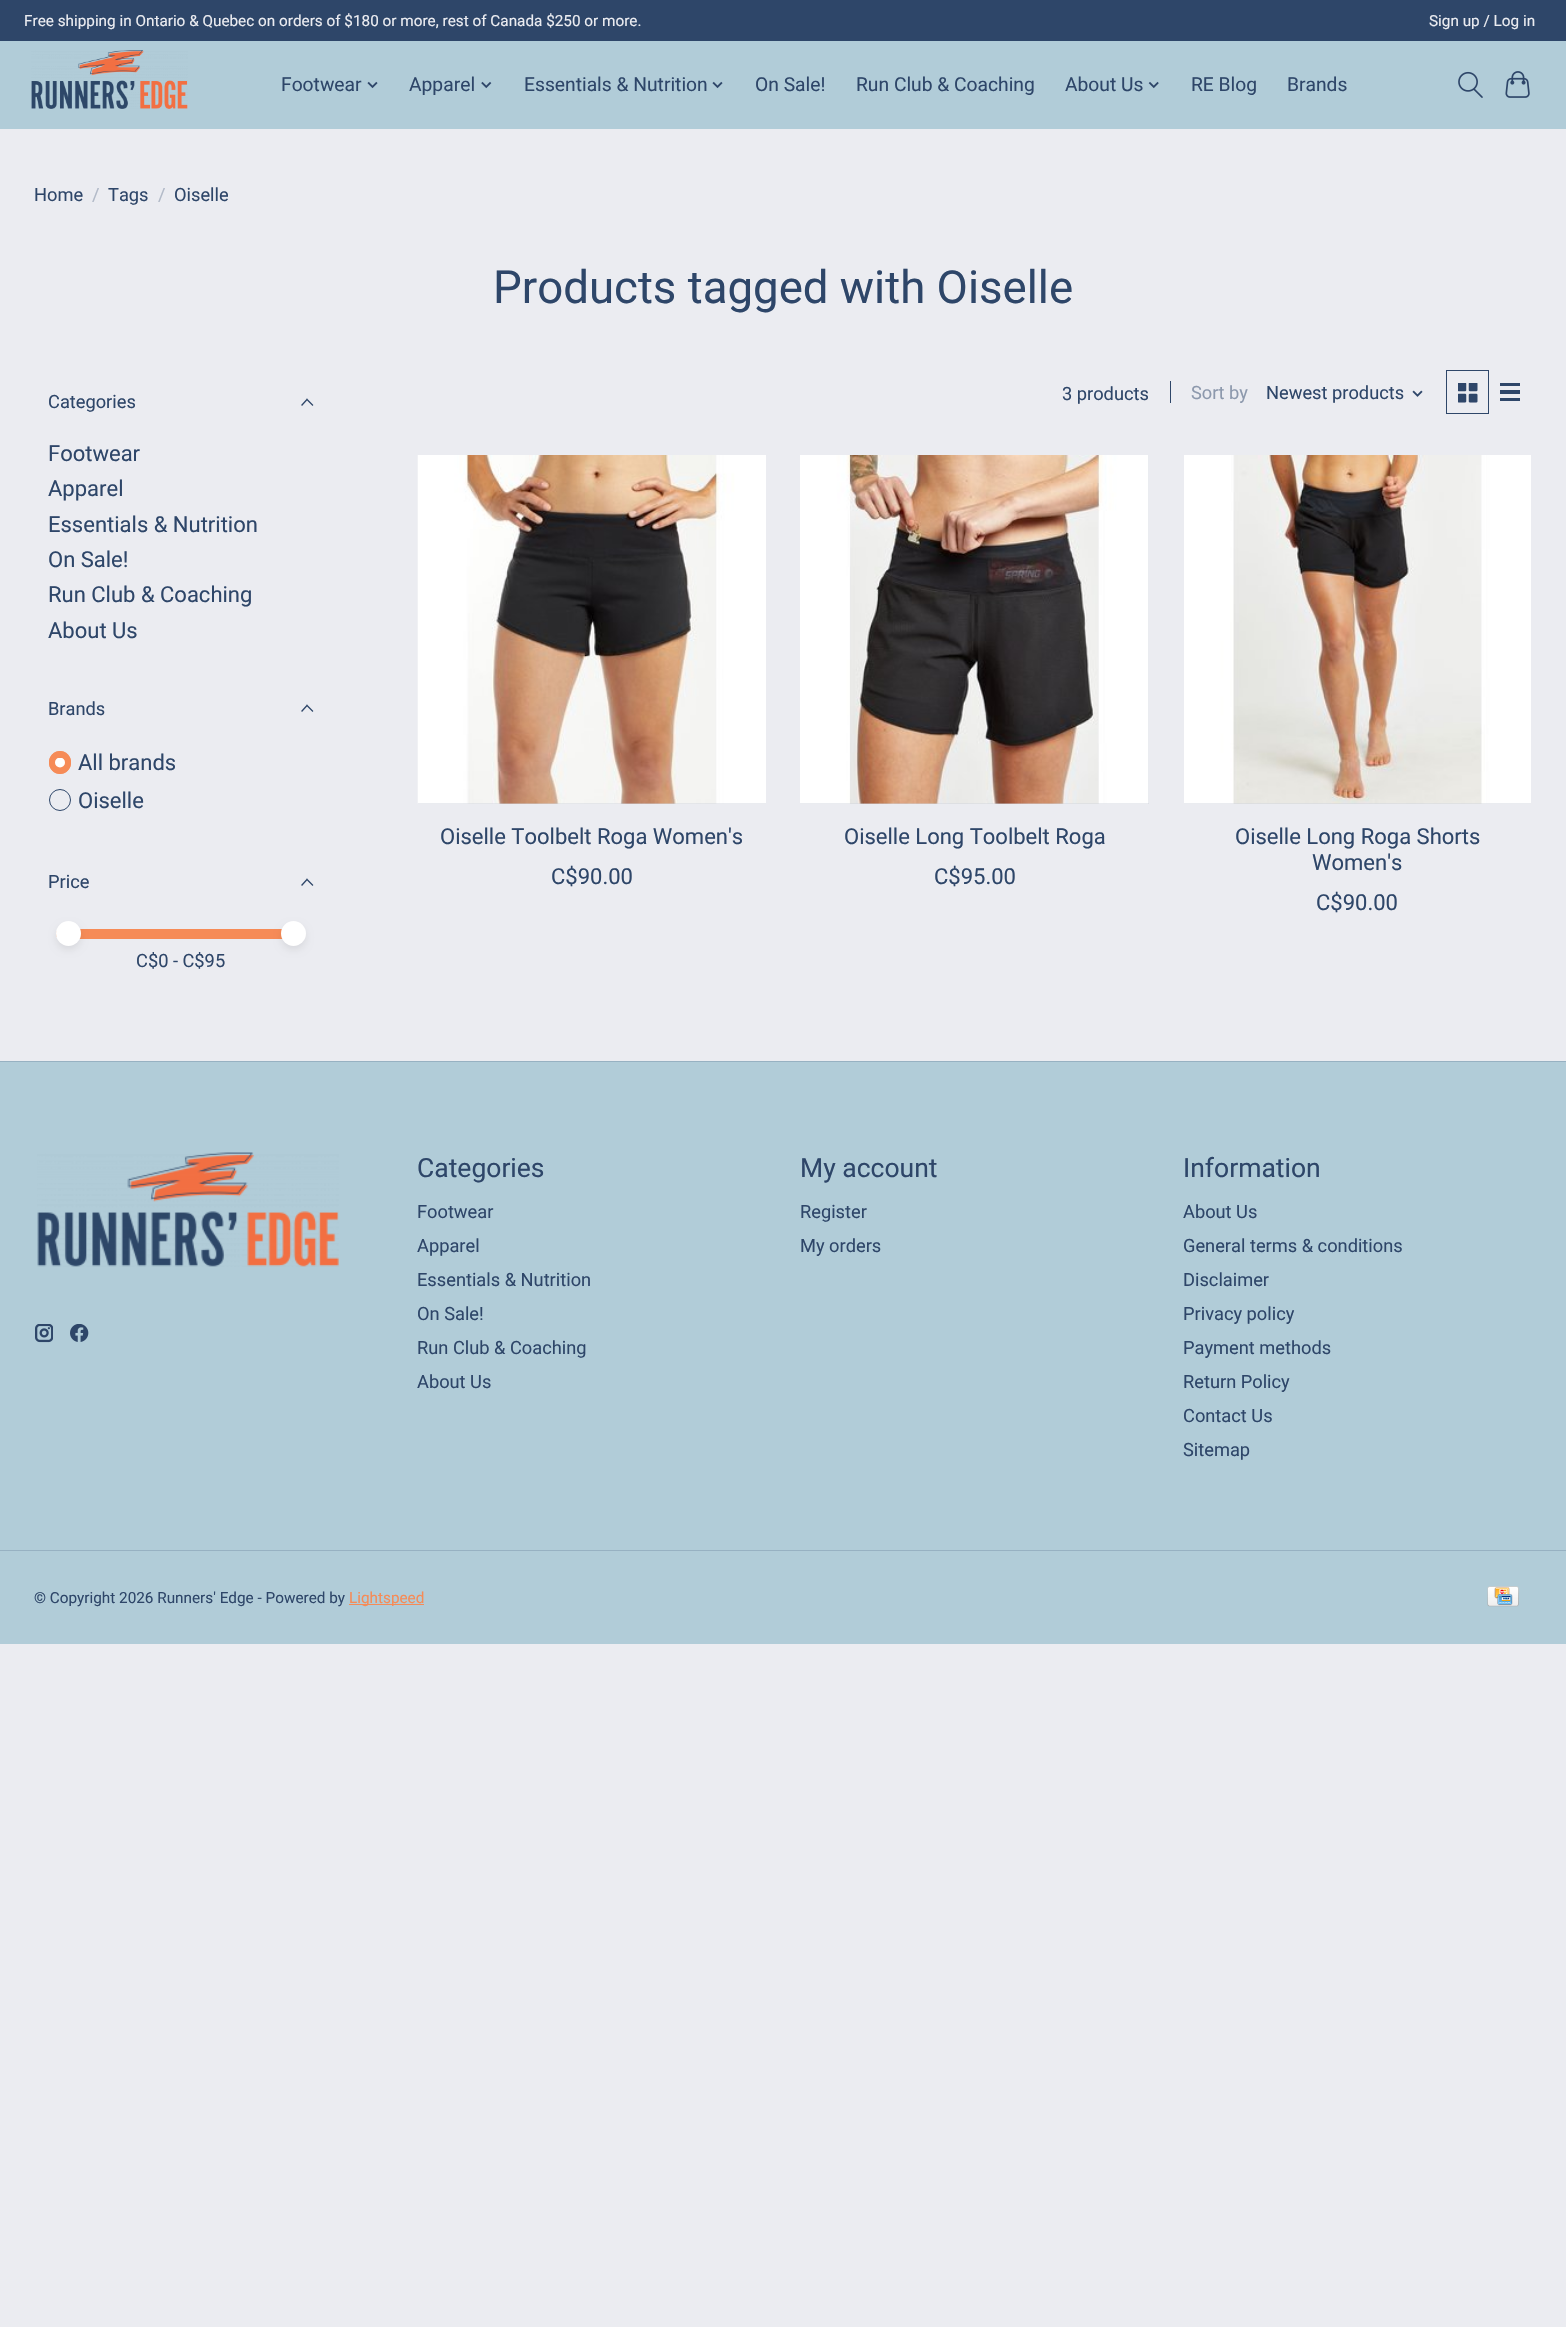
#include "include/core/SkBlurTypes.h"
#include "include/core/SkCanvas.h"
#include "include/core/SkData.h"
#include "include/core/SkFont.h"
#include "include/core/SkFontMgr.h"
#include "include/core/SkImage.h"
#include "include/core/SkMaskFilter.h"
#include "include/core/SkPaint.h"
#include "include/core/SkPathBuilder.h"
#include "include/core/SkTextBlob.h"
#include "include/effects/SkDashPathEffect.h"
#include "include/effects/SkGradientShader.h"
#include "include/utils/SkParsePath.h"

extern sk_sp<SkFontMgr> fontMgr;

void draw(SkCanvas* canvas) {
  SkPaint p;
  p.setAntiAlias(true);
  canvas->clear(SkColorSetRGB(235, 236, 241));
  p.setColor(SkColorSetRGB(177, 204, 216));
  canvas->drawRect(SkRect::MakeLTRB(0, 41, 1566, 129), p);
  p.setColor(SkColorSetRGB(46, 70, 105));
  canvas->drawRect(SkRect::MakeLTRB(0, 0, 1566, 41), p);
  canvas->drawImageRect(SkImages::DeferredFromEncodedData(SkData::MakeFromFileName("images/1.png")), SkRect::MakeLTRB(31, 50, 188, 109), SkSamplingOptions());
  canvas->drawImageRect(SkImages::DeferredFromEncodedData(SkData::MakeFromFileName("images/2.png")), SkRect::MakeLTRB(367, 81, 378, 89), SkSamplingOptions());
  canvas->drawImageRect(SkImages::DeferredFromEncodedData(SkData::MakeFromFileName("images/3.png")), SkRect::MakeLTRB(481, 81, 492, 89), SkSamplingOptions());
  canvas->drawImageRect(SkImages::DeferredFromEncodedData(SkData::MakeFromFileName("images/2.png")), SkRect::MakeLTRB(712, 81, 723, 89), SkSamplingOptions());
  canvas->drawImageRect(SkImages::DeferredFromEncodedData(SkData::MakeFromFileName("images/4.png")), SkRect::MakeLTRB(1148, 81, 1159, 89), SkSamplingOptions());
  canvas->drawImageRect(SkImages::DeferredFromEncodedData(SkData::MakeFromFileName("images/5.png")), SkRect::MakeLTRB(1458, 71, 1483, 98), SkSamplingOptions());
  canvas->drawImageRect(SkImages::DeferredFromEncodedData(SkData::MakeFromFileName("images/6.png")), SkRect::MakeLTRB(1505, 71, 1530, 98), SkSamplingOptions());
  p.setStyle(SkPaint::kStroke_Style);
  p.setStrokeWidth(1.3f);
  p.setStrokeCap(SkPaint::kSquare_Cap);
  canvas->drawPath(SkPathBuilder().moveTo(302, 405).lineTo(307, 399.5f).moveTo(312.5f, 405).lineTo(307, 399.5f).detach(), p);
  canvas->drawPath(SkPathBuilder().moveTo(302, 711).lineTo(307, 705.5f).moveTo(312.5f, 711).lineTo(307, 705.5f).detach(), p);
  p.setStyle(SkPaint::kFill_Style);
  p.setColor(SkColorSetRGB(246, 139, 87));
  canvas->drawRoundRect(SkRect::MakeLTRB(49, 751, 71, 774), 11, 11, p);
  canvas->save();
  canvas->clipRect(SkRect::MakeLTRB(55, 758, 65, 768));
  p.setColor(SK_ColorWHITE);
  canvas->drawCircle(60, 762.5f, 5, p);
  canvas->restore();
  p.setStyle(SkPaint::kStroke_Style);
  p.setStrokeWidth(1);
  p.setStrokeCap(SkPaint::kButt_Cap);
  p.setColor(SkColorSetRGB(246, 139, 87));
  canvas->drawRoundRect(SkRect::MakeLTRB(49.5f, 751.5f, 70.5f, 773.5f), 10.5f, 10.5f, p);
  p.setColor(SkColorSetRGB(46, 70, 105));
  canvas->drawCircle(60, 800, 10.5f, p);
  p.setStrokeWidth(1.3f);
  p.setStrokeCap(SkPaint::kSquare_Cap);
  canvas->drawPath(SkPathBuilder().moveTo(302, 885).lineTo(307, 879.5f).moveTo(312.5f, 885).lineTo(307, 879.5f).detach(), p);
  p.setStyle(SkPaint::kFill_Style);
  p.setColor(SkColorSetRGB(246, 139, 87));
  canvas->drawPath(SkPathBuilder().moveTo(61, 929).lineTo(294, 929).lineTo(294, 939).lineTo(61, 939).cubicTo(58, 939, 56, 937, 56, 934).cubicTo(56, 931, 58, 929, 61, 929).close().detach(), p);
  p.setColor(SkColorSetARGB(20, 0, 0, 0));
  p.setMaskFilter(SkMaskFilter::MakeBlur(kNormal_SkBlurStyle, 3.5f));
  canvas->drawRoundRect(SkRect::MakeLTRB(56, 925, 81, 950), 12.5f, 12.5f, p);
  p.setMaskFilter(nullptr);
  p.setColor(SK_ColorWHITE);
  canvas->drawCircle(68.5f, 933.5f, 12.5f, p);
  p.setColor(SkColorSetARGB(20, 0, 0, 0));
  p.setMaskFilter(SkMaskFilter::MakeBlur(kNormal_SkBlurStyle, 3.5f));
  canvas->drawRoundRect(SkRect::MakeLTRB(281, 925, 306, 950), 12.5f, 12.5f, p);
  p.setMaskFilter(nullptr);
  p.setColor(SK_ColorWHITE);
  canvas->drawCircle(293.5f, 933.5f, 12.5f, p);
  p.setColor(SkColorSetRGB(46, 70, 105));
  canvas->drawRect(SkRect::MakeLTRB(1170, 381, 1171, 403), p);
  canvas->drawImageRect(SkImages::DeferredFromEncodedData(SkData::MakeFromFileName("images/7.png")), SkRect::MakeLTRB(1412, 390, 1423, 397), SkSamplingOptions());
  p.setStyle(SkPaint::kStroke_Style);
  p.setStrokeWidth(1);
  p.setStrokeCap(SkPaint::kButt_Cap);
  canvas->drawRect(SkRect::MakeLTRB(1446.5f, 370.5f, 1488.5f, 413.5f), p);
  canvas->drawImageRect(SkImages::DeferredFromEncodedData(SkData::MakeFromFileName("images/8.png")), SkRect::MakeLTRB(1458, 383, 1478, 403), SkSamplingOptions());
  p.setStyle(SkPaint::kFill_Style);
  canvas->drawRect(SkRect::MakeLTRB(1500, 383, 1520, 386), p);
  canvas->drawRect(SkRect::MakeLTRB(1500, 390, 1520, 394), p);
  canvas->drawRect(SkRect::MakeLTRB(1500, 398, 1520, 401), p);
  p.setColor(SkColorSetRGB(207, 211, 220));
  canvas->drawRect(SkRect::MakeLTRB(418, 803, 766, 804), p);
  canvas->drawImageRect(SkImages::DeferredFromEncodedData(SkData::MakeFromFileName("images/9.png")), SkRect::MakeLTRB(417, 455, 766, 804), SkSamplingOptions());
  canvas->drawRect(SkRect::MakeLTRB(800, 455, 1149, 804), p);
  canvas->drawImageRect(SkImages::DeferredFromEncodedData(SkData::MakeFromFileName("images/10.png")), SkRect::MakeLTRB(800, 455, 1149, 804), SkSamplingOptions());
  canvas->drawRect(SkRect::MakeLTRB(1184, 803, 1531, 804), p);
  canvas->drawImageRect(SkImages::DeferredFromEncodedData(SkData::MakeFromFileName("images/11.png")), SkRect::MakeLTRB(1184, 455, 1531, 804), SkSamplingOptions());
  p.setColor(SkColorSetRGB(177, 204, 216));
  canvas->drawRect(SkRect::MakeLTRB(0, 1062, 1566, 1644), p);
  p.setColor(SkColorSetRGB(151, 177, 194));
  canvas->drawRect(SkRect::MakeLTRB(0, 1061, 1566, 1062), p);
  canvas->drawImageRect(SkImages::DeferredFromEncodedData(SkData::MakeFromFileName("images/12.png")), SkRect::MakeLTRB(37, 1152, 339, 1267), SkSamplingOptions());
  canvas->drawImageRect(SkImages::DeferredFromEncodedData(SkData::MakeFromFileName("images/13.png")), SkRect::MakeLTRB(35, 1324, 53, 1343), SkSamplingOptions());
  canvas->drawImageRect(SkImages::DeferredFromEncodedData(SkData::MakeFromFileName("images/14.png")), SkRect::MakeLTRB(70, 1324, 89, 1342), SkSamplingOptions());
  canvas->drawRect(SkRect::MakeLTRB(0, 1550, 1566, 1551), p);
  p.setColor(SkColorSetRGB(246, 139, 87));
  canvas->drawRect(SkRect::MakeLTRB(349, 1604, 424, 1605), p);
  canvas->drawImageRect(SkImages::DeferredFromEncodedData(SkData::MakeFromFileName("images/15.png")), SkRect::MakeLTRB(1487, 1586, 1519, 1607), SkSamplingOptions());
  SkFont font1(fontMgr->matchFamilyStyle("Roboto", SkFontStyle::Normal()), 15.3f);
  font1.setSubpixel(true);
  p.setColor(SkColorSetRGB(235, 236, 241));
  canvas->drawString("Free shipping in Ontario & Quebec on orders of $180 or more, rest of Canada $250 or more.", 24, 26, font1, p);
  canvas->drawString("Sign up / Log in", 1429, 26, font1, p);
  SkFont font2(fontMgr->matchFamilyStyle("Roboto", SkFontStyle::Normal()), 19.25f);
  font2.setSubpixel(true);
  p.setColor(SkColorSetRGB(46, 70, 105));
  canvas->drawString("Footwear", 281, 91, font2, p);
  canvas->drawString("Apparel", 409, 91, font2, p);
  canvas->drawString("Essentials & Nutrition", 524, 91, font2, p);
  canvas->drawString("On Sale!", 755, 91, font2, p);
  canvas->drawString("Run Club & Coaching", 856, 91, font2, p);
  canvas->drawString("About Us", 1065, 91, font2, p);
  canvas->drawString("RE Blog", 1191, 91, font2, p);
  canvas->drawString("Brands", 1287, 91, font2, p);
  SkFont font3(fontMgr->matchFamilyStyle("Roboto", SkFontStyle::Normal()), 18.25f);
  font3.setSubpixel(true);
  canvas->drawString("Home", 34, 201, font3, p);
  p.setColor(SkColorSetRGB(178, 186, 200));
  canvas->drawString("/", 92, 201, font3, p);
  p.setColor(SkColorSetRGB(46, 70, 105));
  canvas->drawString("Tags", 108, 201, font3, p);
  p.setColor(SkColorSetRGB(178, 186, 200));
  canvas->drawString("/", 158, 201, font3, p);
  p.setColor(SkColorSetRGB(46, 70, 105));
  canvas->drawString("Oiselle", 174, 201, font3, p);
  SkFont font4(fontMgr->matchFamilyStyle("Roboto", SkFontStyle::Normal()), 45.6f);
  font4.setSubpixel(true);
  canvas->drawString("Products tagged with Oiselle", 493, 303, font4, p);
  canvas->drawString("Categories", 48, 408, font3, p);
  SkFont font5(fontMgr->matchFamilyStyle("Roboto", SkFontStyle::Normal()), 22);
  font5.setSubpixel(true);
  canvas->drawString("Footwear", 48, 461, font5, p);
  canvas->drawString("Apparel", 48, 496, font5, p);
  canvas->drawString("Essentials & Nutrition", 48, 532, font5, p);
  canvas->drawString("On Sale!", 48, 567, font5, p);
  canvas->drawString("Run Club & Coaching", 48, 602, font5, p);
  canvas->drawString("About Us", 48, 638, font5, p);
  canvas->drawString("Brands", 48, 715, font3, p);
  canvas->drawString("All brands", 78, 770, font5, p);
  canvas->drawString("Oiselle", 78, 808, font5, p);
  canvas->drawString("Price", 48, 888, font3, p);
  canvas->drawString("C$0 - C$95", 136, 967, font3, p);
  canvas->drawString("3 products", 1062, 400, font3, p);
  p.setColor(SkColorSetRGB(141, 153, 173));
  canvas->drawString("Sort by", 1191, 399, font3, p);
  p.setColor(SkColorSetRGB(46, 70, 105));
  canvas->drawString("Newest products", 1266, 399, font3, p);
  canvas->drawString("Oiselle Toolbelt Roga Women's", 440, 844, font5, p);
  canvas->drawString("C$90.00", 551, 884, font5, p);
  canvas->drawString("Oiselle Long Toolbelt Roga", 844, 844, font5, p);
  canvas->drawString("C$95.00", 934, 884, font5, p);
  canvas->drawString("Oiselle Long Roga Shorts", 1235, 844, font5, p);
  canvas->drawString("Women's", 1312, 870, font5, p);
  canvas->drawString("C$90.00", 1316, 910, font5, p);
  SkFont font6(fontMgr->matchFamilyStyle("Roboto", SkFontStyle::Normal()), 26.5f);
  font6.setSubpixel(true);
  canvas->drawString("Categories", 417, 1177, font6, p);
  canvas->drawString("Footwear", 417, 1218, font3, p);
  canvas->drawString("Apparel", 417, 1252, font3, p);
  canvas->drawString("Essentials & Nutrition", 417, 1286, font3, p);
  canvas->drawString("On Sale!", 417, 1320, font3, p);
  canvas->drawString("Run Club & Coaching", 417, 1354, font3, p);
  canvas->drawString("About Us", 417, 1388, font3, p);
  canvas->drawString("My account", 800, 1177, font6, p);
  canvas->drawString("Register", 800, 1218, font3, p);
  canvas->drawString("My orders", 800, 1252, font3, p);
  canvas->drawString("Information", 1183, 1177, font6, p);
  canvas->drawString("About Us", 1183, 1218, font3, p);
  canvas->drawString("General terms & conditions", 1183, 1252, font3, p);
  canvas->drawString("Disclaimer", 1183, 1286, font3, p);
  canvas->drawString("Privacy policy", 1183, 1320, font3, p);
  canvas->drawString("Payment methods", 1183, 1354, font3, p);
  canvas->drawString("Return Policy", 1183, 1388, font3, p);
  canvas->drawString("Contact Us", 1183, 1422, font3, p);
  canvas->drawString("Sitemap", 1183, 1456, font3, p);
  canvas->drawString("© Copyright 2026 Runners' Edge - Powered by", 34, 1603, font1, p);
  p.setColor(SkColorSetRGB(246, 139, 87));
  canvas->drawString("Lightspeed", 349, 1603, font1, p);
}
